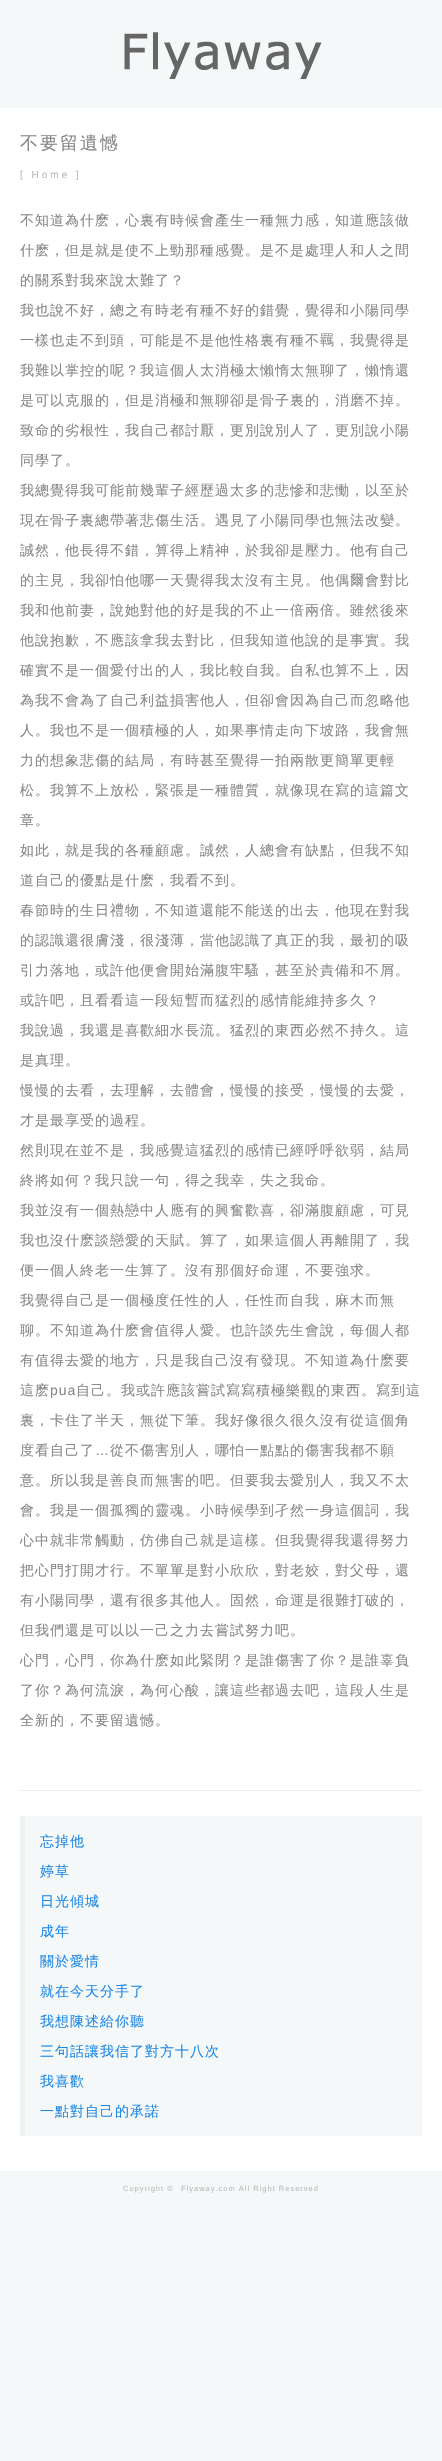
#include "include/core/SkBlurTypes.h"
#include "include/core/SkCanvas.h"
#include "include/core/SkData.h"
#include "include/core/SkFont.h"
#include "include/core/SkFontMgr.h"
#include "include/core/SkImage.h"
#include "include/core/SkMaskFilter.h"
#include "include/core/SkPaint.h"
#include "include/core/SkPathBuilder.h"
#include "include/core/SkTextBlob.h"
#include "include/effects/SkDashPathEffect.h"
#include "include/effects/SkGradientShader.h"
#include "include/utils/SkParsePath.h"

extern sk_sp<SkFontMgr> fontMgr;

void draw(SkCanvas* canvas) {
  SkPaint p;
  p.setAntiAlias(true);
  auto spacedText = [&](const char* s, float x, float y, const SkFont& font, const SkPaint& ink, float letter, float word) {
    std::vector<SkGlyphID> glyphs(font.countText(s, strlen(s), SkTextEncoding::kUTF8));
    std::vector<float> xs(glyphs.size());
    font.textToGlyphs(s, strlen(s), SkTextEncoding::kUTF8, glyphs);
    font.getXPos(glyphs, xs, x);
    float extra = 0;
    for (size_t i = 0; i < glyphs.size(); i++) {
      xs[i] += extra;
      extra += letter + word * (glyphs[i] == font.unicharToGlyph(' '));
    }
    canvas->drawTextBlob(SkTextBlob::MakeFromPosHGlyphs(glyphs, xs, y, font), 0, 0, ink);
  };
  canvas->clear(SkColorSetRGB(244, 248, 249));
  canvas->drawImageRect(SkImages::DeferredFromEncodedData(SkData::MakeFromFileName("images/1.png")), SkRect::MakeLTRB(124, 32, 322, 79), SkSamplingOptions());
  p.setColor(SK_ColorWHITE);
  canvas->drawRect(SkRect::MakeLTRB(0, 108, 442, 2171), p);
  p.setColor(SkColorSetRGB(238, 238, 238));
  canvas->drawRect(SkRect::MakeLTRB(20, 1790, 422, 1791), p);
  p.setColor(SkColorSetRGB(244, 248, 249));
  canvas->drawRect(SkRect::MakeLTRB(25, 1816, 422, 2136), p);
  p.setColor(SkColorSetRGB(238, 241, 242));
  canvas->drawRect(SkRect::MakeLTRB(20, 1816, 25, 2136), p);
  SkFont font1(fontMgr->matchFamilyStyle("WenQuanYi Zen Hei", SkFontStyle(500, SkFontStyle::kNormal_Width, SkFontStyle::kUpright_Slant)), 18);
  font1.setSubpixel(true);
  p.setColor(SkColorSetRGB(136, 136, 136));
  spacedText("不要留遺憾", 20, 149, font1, p, 2, 0);
  SkFont font2(fontMgr->matchFamilyStyle("Liberation Sans", SkFontStyle::Normal()), 10);
  font2.setSubpixel(true);
  p.setColor(SkColorSetRGB(187, 187, 187));
  spacedText("[ Home ]", 20, 178, font2, p, 3, 0);
  SkFont font3(fontMgr->matchFamilyStyle("WenQuanYi Zen Hei", SkFontStyle(500, SkFontStyle::kNormal_Width, SkFontStyle::kUpright_Slant)), 14);
  font3.setSubpixel(true);
  p.setColor(SkColorSetRGB(136, 136, 136));
  spacedText("不知道為什麽，心裏有時候會產生一種無力感，知道應該做", 20, 225, font3, p, 1, 0);
  spacedText("什麽，但是就是使不上勁那種感覺。是不是處理人和人之間", 20, 255, font3, p, 1, 0);
  spacedText("的關系對我來說太難了？", 20, 285, font3, p, 1, 0);
  spacedText("我也說不好，總之有時老有種不好的錯覺，覺得和小陽同學", 20, 315, font3, p, 1, 0);
  spacedText("一樣也走不到頭，可能是不是他性格裏有種不羈，我覺得是", 20, 345, font3, p, 1, 0);
  spacedText("我難以掌控的呢？我這個人太消極太懶惰太無聊了，懶惰還", 20, 375, font3, p, 1, 0);
  spacedText("是可以克服的，但是消極和無聊卻是骨子裏的，消磨不掉。", 20, 405, font3, p, 1, 0);
  spacedText("致命的劣根性，我自己都討厭，更別說別人了，更別說小陽", 20, 435, font3, p, 1, 0);
  spacedText("同學了。", 20, 465, font3, p, 1, 0);
  spacedText("我總覺得我可能前幾輩子經歷過太多的悲慘和悲慟，以至於", 20, 495, font3, p, 1, 0);
  spacedText("現在骨子裏總帶著悲傷生活。遇見了小陽同學也無法改變。", 20, 525, font3, p, 1, 0);
  spacedText("誠然，他長得不錯，算得上精神，於我卻是壓力。他有自己", 20, 555, font3, p, 1, 0);
  spacedText("的主見，我卻怕他哪一天覺得我太沒有主見。他偶爾會對比", 20, 585, font3, p, 1, 0);
  spacedText("我和他前妻，說她對他的好是我的不止一倍兩倍。雖然後來", 20, 615, font3, p, 1, 0);
  spacedText("他說抱歉，不應該拿我去對比，但我知道他說的是事實。我", 20, 645, font3, p, 1, 0);
  spacedText("確實不是一個愛付出的人，我比較自我。自私也算不上，因", 20, 675, font3, p, 1, 0);
  spacedText("為我不會為了自己利益損害他人，但卻會因為自己而忽略他", 20, 705, font3, p, 1, 0);
  spacedText("人。我也不是一個積極的人，如果事情走向下坡路，我會無", 20, 735, font3, p, 1, 0);
  spacedText("力的想象悲傷的結局，有時甚至覺得一拍兩散更簡單更輕", 20, 765, font3, p, 1, 0);
  spacedText("松。我算不上放松，緊張是一種體質，就像現在寫的這篇文", 20, 795, font3, p, 1, 0);
  spacedText("章。", 20, 825, font3, p, 1, 0);
  spacedText("如此，就是我的各種顧慮。誠然，人總會有缺點，但我不知", 20, 855, font3, p, 1, 0);
  spacedText("道自己的優點是什麽，我看不到。", 20, 885, font3, p, 1, 0);
  spacedText("春節時的生日禮物，不知道還能不能送的出去，他現在對我", 20, 915, font3, p, 1, 0);
  spacedText("的認識還很膚淺，很淺薄，當他認識了真正的我，最初的吸", 20, 945, font3, p, 1, 0);
  spacedText("引力落地，或許他便會開始滿腹牢騷，甚至於責備和不屑。", 20, 975, font3, p, 1, 0);
  spacedText("或許吧，且看看這一段短暫而猛烈的感情能維持多久？", 20, 1005, font3, p, 1, 0);
  spacedText("我說過，我還是喜歡細水長流。猛烈的東西必然不持久。這", 20, 1035, font3, p, 1, 0);
  spacedText("是真理。", 20, 1065, font3, p, 1, 0);
  spacedText("慢慢的去看，去理解，去體會，慢慢的接受，慢慢的去愛，", 20, 1095, font3, p, 1, 0);
  spacedText("才是最享受的過程。", 20, 1125, font3, p, 1, 0);
  spacedText("然則現在並不是，我感覺這猛烈的感情已經呼呼欲弱，結局", 20, 1155, font3, p, 1, 0);
  spacedText("終將如何？我只說一句，得之我幸，失之我命。", 20, 1185, font3, p, 1, 0);
  spacedText("我並沒有一個熱戀中人應有的興奮歡喜，卻滿腹顧慮，可見", 20, 1215, font3, p, 1, 0);
  spacedText("我也沒什麽談戀愛的天賦。算了，如果這個人再離開了，我", 20, 1245, font3, p, 1, 0);
  spacedText("便一個人終老一生算了。沒有那個好命運，不要強求。", 20, 1275, font3, p, 1, 0);
  spacedText("我覺得自己是一個極度任性的人，任性而自我，麻木而無", 20, 1305, font3, p, 1, 0);
  spacedText("聊。不知道為什麽會值得人愛。也許談先生會說，每個人都", 20, 1335, font3, p, 1, 0);
  spacedText("有值得去愛的地方，只是我自己沒有發現。不知道為什麽要", 20, 1365, font3, p, 1, 0);
  spacedText("這麽", 20, 1395, font3, p, 1, 0);
  SkFont font4(fontMgr->matchFamilyStyle("Liberation Sans", SkFontStyle::Normal()), 14);
  font4.setSubpixel(true);
  spacedText("pua", 50, 1395, font4, p, 1, 0);
  spacedText("自己。我或許應該嘗試寫寫積極樂觀的東西。寫到這", 76, 1395, font3, p, 1, 0);
  spacedText("裏，卡住了半天，無從下筆。我好像很久很久沒有從這個角", 20, 1425, font3, p, 1, 0);
  spacedText("度看自己了", 20, 1455, font3, p, 1, 0);
  spacedText("…", 95, 1455, font4, p, 1, 0);
  spacedText("從不傷害別人，哪怕一點點的傷害我都不願", 110, 1455, font3, p, 1, 0);
  spacedText("意。所以我是善良而無害的吧。但要我去愛別人，我又不太", 20, 1485, font3, p, 1, 0);
  spacedText("會。我是一個孤獨的靈魂。小時候學到孑然一身這個詞，我", 20, 1515, font3, p, 1, 0);
  spacedText("心中就非常觸動，仿佛自己就是這樣。但我覺得我還得努力", 20, 1545, font3, p, 1, 0);
  spacedText("把心門打開才行。不單單是對小欣欣，對老姣，對父母，還", 20, 1575, font3, p, 1, 0);
  spacedText("有小陽同學，還有很多其他人。固然，命運是很難打破的，", 20, 1605, font3, p, 1, 0);
  spacedText("但我們還是可以以一己之力去嘗試努力吧。", 20, 1635, font3, p, 1, 0);
  spacedText("心門，心門，你為什麽如此緊閉？是誰傷害了你？是誰辜負", 20, 1665, font3, p, 1, 0);
  spacedText("了你？為何流淚，為何心酸，讓這些都過去吧，這段人生是", 20, 1695, font3, p, 1, 0);
  spacedText("全新的，不要留遺憾。", 20, 1725, font3, p, 1, 0);
  p.setColor(SkColorSetRGB(30, 136, 229));
  spacedText("忘掉他", 40, 1846, font3, p, 1, 0);
  spacedText("婷草", 40, 1876, font3, p, 1, 0);
  spacedText("日光傾城", 40, 1906, font3, p, 1, 0);
  spacedText("成年", 40, 1936, font3, p, 1, 0);
  spacedText("關於愛情", 40, 1966, font3, p, 1, 0);
  spacedText("就在今天分手了", 40, 1996, font3, p, 1, 0);
  spacedText("我想陳述給你聽", 40, 2026, font3, p, 1, 0);
  spacedText("三句話讓我信了對方十八次", 40, 2056, font3, p, 1, 0);
  spacedText("我喜歡", 40, 2086, font3, p, 1, 0);
  spacedText("一點對自己的承諾", 40, 2116, font3, p, 1, 0);
  SkFont font5(fontMgr->matchFamilyStyle("Liberation Sans", SkFontStyle::Normal()), 7.5f);
  font5.setSubpixel(true);
  p.setColor(SkColorSetRGB(187, 187, 187));
  spacedText("Copyright ©", 123, 2191, font5, p, 1, 0);
  spacedText("Flyaway.com All Right Reserved", 181, 2191, font5, p, 1, 0);
}
